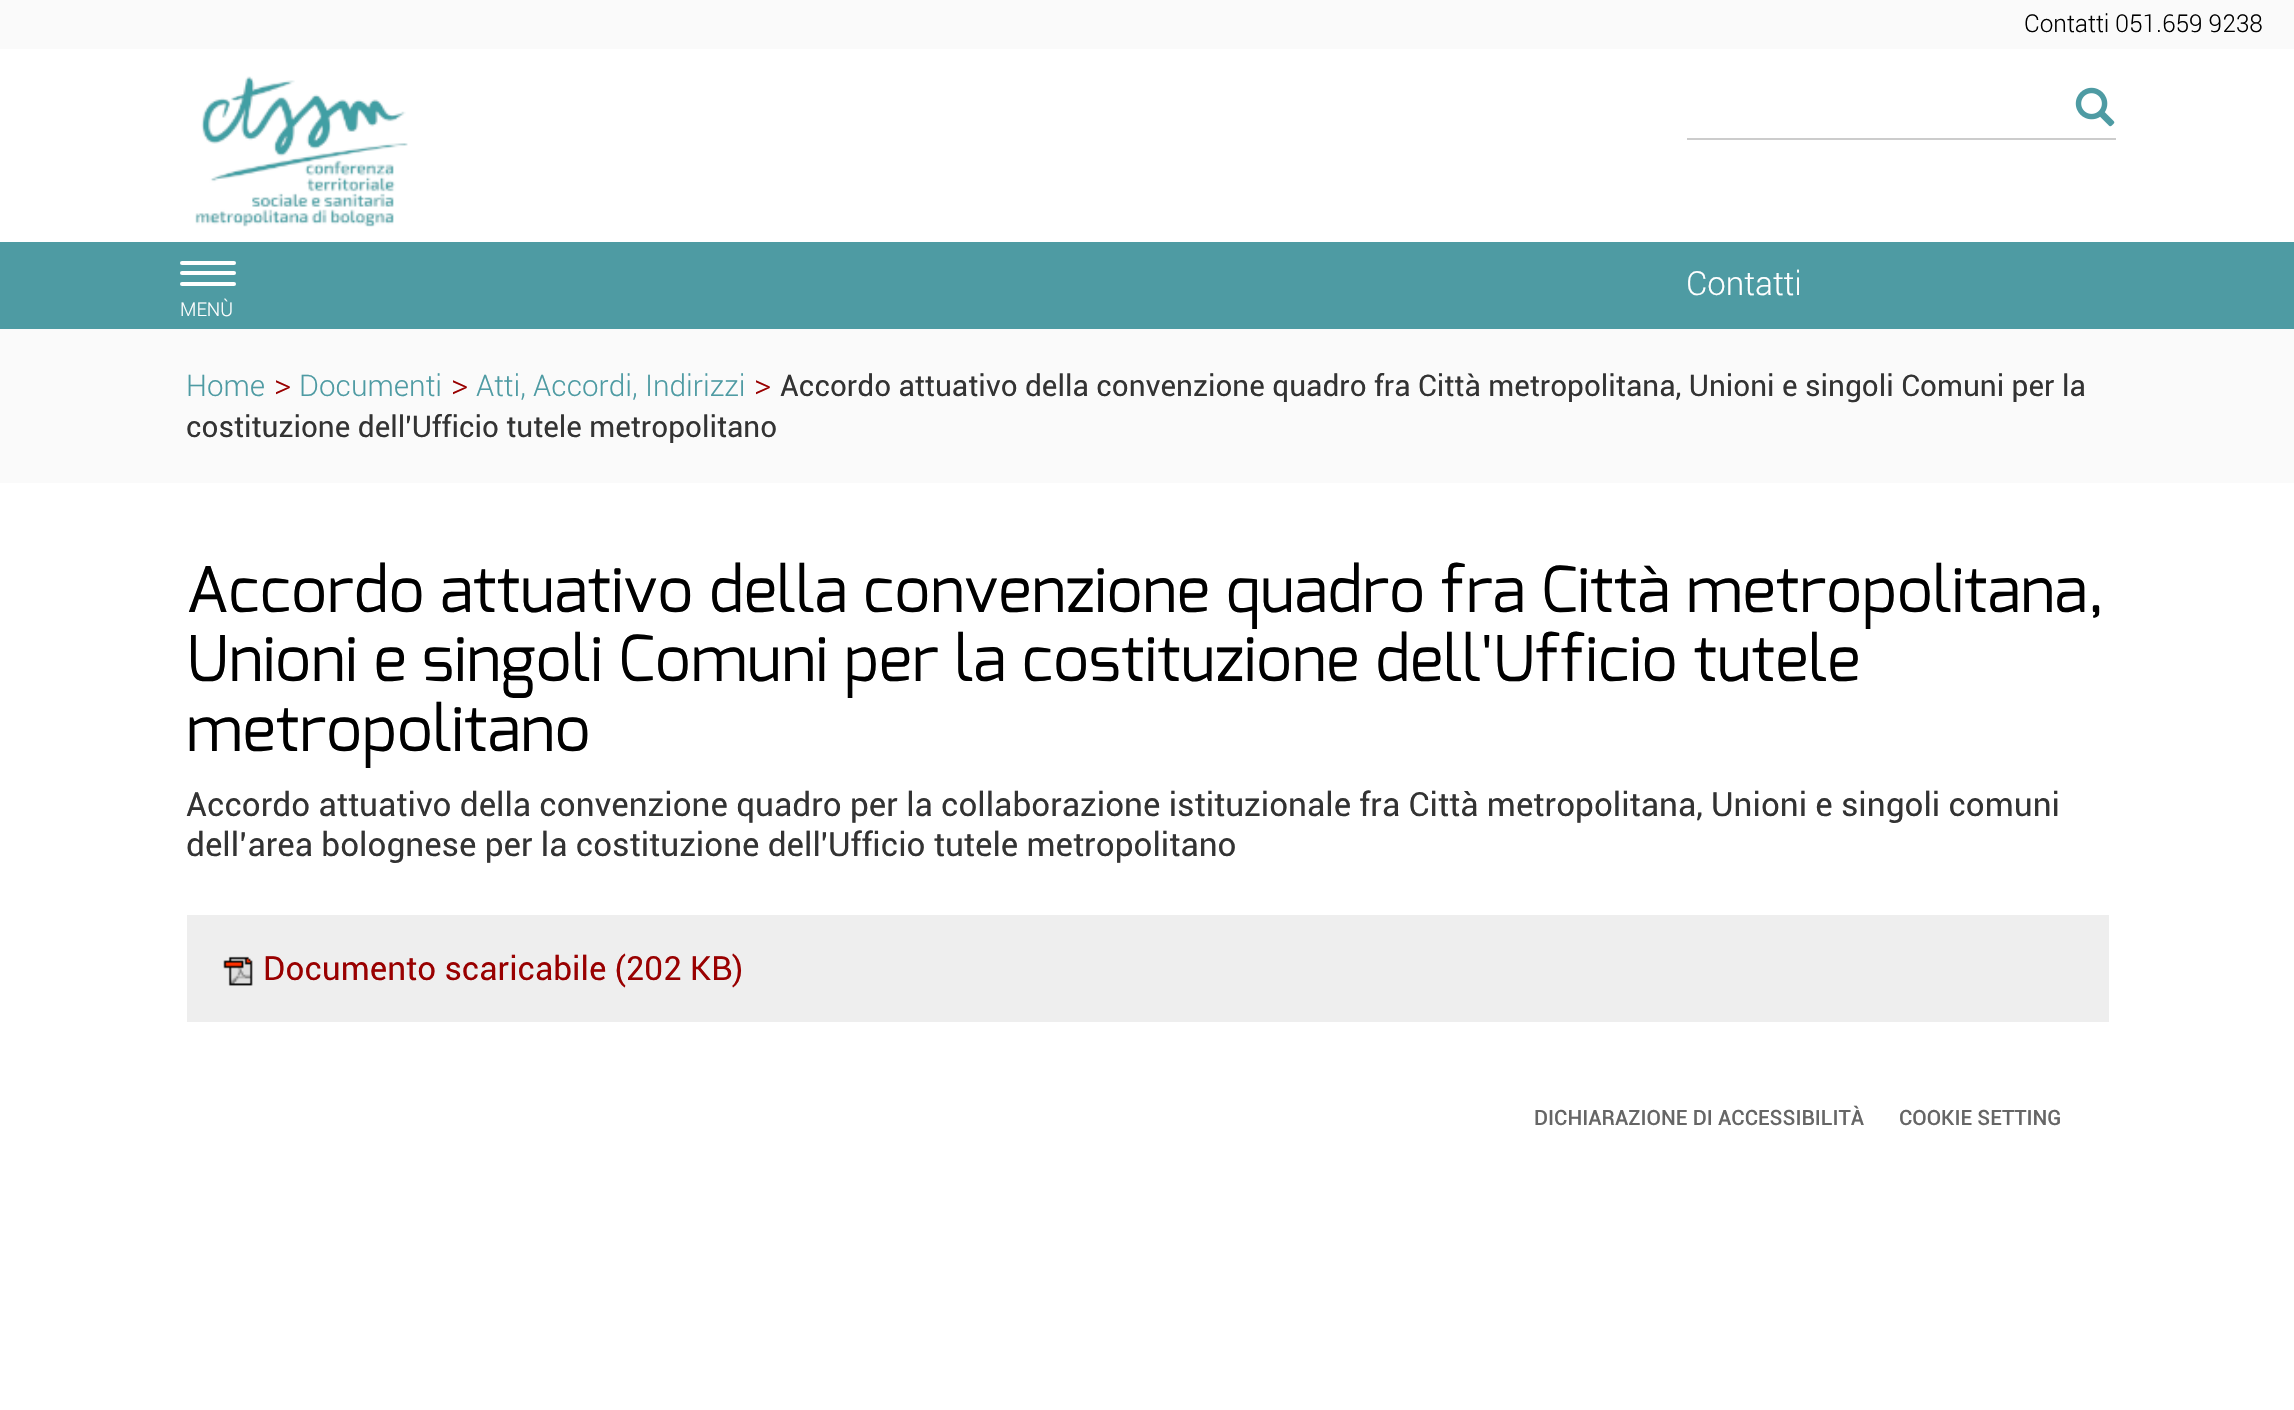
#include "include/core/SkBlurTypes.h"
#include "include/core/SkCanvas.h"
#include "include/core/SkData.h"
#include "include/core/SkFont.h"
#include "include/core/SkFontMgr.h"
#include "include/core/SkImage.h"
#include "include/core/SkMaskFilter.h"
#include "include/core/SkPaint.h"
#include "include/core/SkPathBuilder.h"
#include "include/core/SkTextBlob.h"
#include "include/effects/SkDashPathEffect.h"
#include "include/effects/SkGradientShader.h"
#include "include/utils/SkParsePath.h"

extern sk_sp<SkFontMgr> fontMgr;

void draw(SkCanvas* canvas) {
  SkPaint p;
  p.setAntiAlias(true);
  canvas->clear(SK_ColorWHITE);
  p.setColor(SkColorSetRGB(250, 250, 250));
  canvas->drawRect(SkRect::MakeLTRB(0, 0, 2294, 49), p);
  canvas->drawImageRect(SkImages::DeferredFromEncodedData(SkData::MakeFromFileName("images/1.png")), SkRect::MakeLTRB(195, 76, 408, 227), SkSamplingOptions());
  canvas->drawImageRect(SkImages::DeferredFromEncodedData(SkData::MakeFromFileName("images/2.png")), SkRect::MakeLTRB(2075, 87, 2115, 127), SkSamplingOptions());
  p.setColor(SkColorSetRGB(204, 204, 204));
  canvas->drawRect(SkRect::MakeLTRB(1687, 138, 2116, 140), p);
  p.setColor(SkColorSetRGB(78, 155, 163));
  canvas->drawRect(SkRect::MakeLTRB(0, 242, 2294, 329), p);
  p.setColor(SK_ColorWHITE);
  canvas->drawRoundRect(SkRect::MakeLTRB(180, 261, 236, 265), 2, 2, p);
  canvas->drawRoundRect(SkRect::MakeLTRB(180, 271, 236, 275), 2, 2, p);
  canvas->drawRoundRect(SkRect::MakeLTRB(180, 282, 236, 286), 2, 2, p);
  p.setColor(SkColorSetRGB(250, 250, 250));
  canvas->drawRect(SkRect::MakeLTRB(0, 329, 2294, 483), p);
  p.setColor(SkColorSetRGB(238, 238, 238));
  canvas->drawRect(SkRect::MakeLTRB(187, 915, 2109, 1022), p);
  canvas->drawImageRect(SkImages::DeferredFromEncodedData(SkData::MakeFromFileName("images/3.png")), SkRect::MakeLTRB(223, 956, 253, 986), SkSamplingOptions());
  SkFont font1(fontMgr->matchFamilyStyle("Roboto", SkFontStyle(300, SkFontStyle::kNormal_Width, SkFontStyle::kUpright_Slant)), 24.5f);
  font1.setSubpixel(true);
  p.setColor(SK_ColorBLACK);
  canvas->drawString("Contatti 051.659 9238", 2024, 32, font1, p);
  SkFont font2(fontMgr->matchFamilyStyle("Roboto", SkFontStyle(300, SkFontStyle::kNormal_Width, SkFontStyle::kUpright_Slant)), 33.25f);
  font2.setSubpixel(true);
  p.setColor(SK_ColorWHITE);
  canvas->drawString("Contatti", 1686, 295, font2, p);
  SkFont font3(fontMgr->matchFamilyStyle("Roboto", SkFontStyle(300, SkFontStyle::kNormal_Width, SkFontStyle::kUpright_Slant)), 19);
  font3.setSubpixel(true);
  canvas->drawString("MENÙ", 180, 316, font3, p);
  SkFont font4(fontMgr->matchFamilyStyle("Roboto", SkFontStyle(300, SkFontStyle::kNormal_Width, SkFontStyle::kUpright_Slant)), 29.75f);
  font4.setSubpixel(true);
  p.setColor(SkColorSetRGB(78, 155, 163));
  canvas->drawString("Home", 186, 396, font4, p);
  p.setColor(SkColorSetRGB(153, 0, 0));
  canvas->drawString(">", 274, 396, font2, p);
  p.setColor(SkColorSetRGB(78, 155, 163));
  canvas->drawString("Documenti", 299, 396, font4, p);
  p.setColor(SkColorSetRGB(153, 0, 0));
  canvas->drawString(">", 451, 396, font2, p);
  p.setColor(SkColorSetRGB(78, 155, 163));
  canvas->drawString("Atti, Accordi, Indirizzi", 476, 396, font4, p);
  p.setColor(SkColorSetRGB(153, 0, 0));
  canvas->drawString(">", 754, 396, font2, p);
  SkFont font5(fontMgr->matchFamilyStyle("Roboto", SkFontStyle::Normal()), 29.75f);
  font5.setSubpixel(true);
  p.setColor(SkColorSetRGB(51, 51, 51));
  canvas->drawString("Accordo attuativo della convenzione quadro fra Città metropolitana, Unioni e singoli Comuni per la", 780, 396, font5, p);
  canvas->drawString("costituzione dell'Ufficio tutele metropolitano", 186, 437, font5, p);
  SkFont font6(fontMgr->matchFamilyStyle("Exo", SkFontStyle::Normal()), 63);
  font6.setSubpixel(true);
  p.setColor(SK_ColorBLACK);
  canvas->drawString("Accordo attuativo della convenzione quadro fra Città metropolitana,", 186, 612, font6, p);
  canvas->drawString("Unioni e singoli Comuni per la costituzione dell'Ufficio tutele", 186, 681, font6, p);
  canvas->drawString("metropolitano", 186, 751, font6, p);
  SkFont font7(fontMgr->matchFamilyStyle("Roboto", SkFontStyle::Normal()), 33.25f);
  font7.setSubpixel(true);
  p.setColor(SkColorSetRGB(51, 51, 51));
  canvas->drawString("Accordo attuativo della convenzione quadro per la collaborazione istituzionale fra Città metropolitana, Unioni e singoli comuni", 186, 816, font7, p);
  canvas->drawString("dell’area bolognese per la costituzione dell'Ufficio tutele metropolitano", 186, 856, font7, p);
  p.setColor(SkColorSetRGB(153, 0, 0));
  canvas->drawString("Documento scaricabile (202 KB)", 263, 980, font7, p);
  SkFont font8(fontMgr->matchFamilyStyle("Roboto", SkFontStyle(500, SkFontStyle::kNormal_Width, SkFontStyle::kUpright_Slant)), 21);
  font8.setSubpixel(true);
  p.setColor(SkColorSetRGB(102, 102, 102));
  canvas->drawString("DICHIARAZIONE DI ACCESSIBILITÀ", 1534, 1125, font8, p);
  canvas->drawString("COOKIE SETTING", 1899, 1125, font8, p);
}
